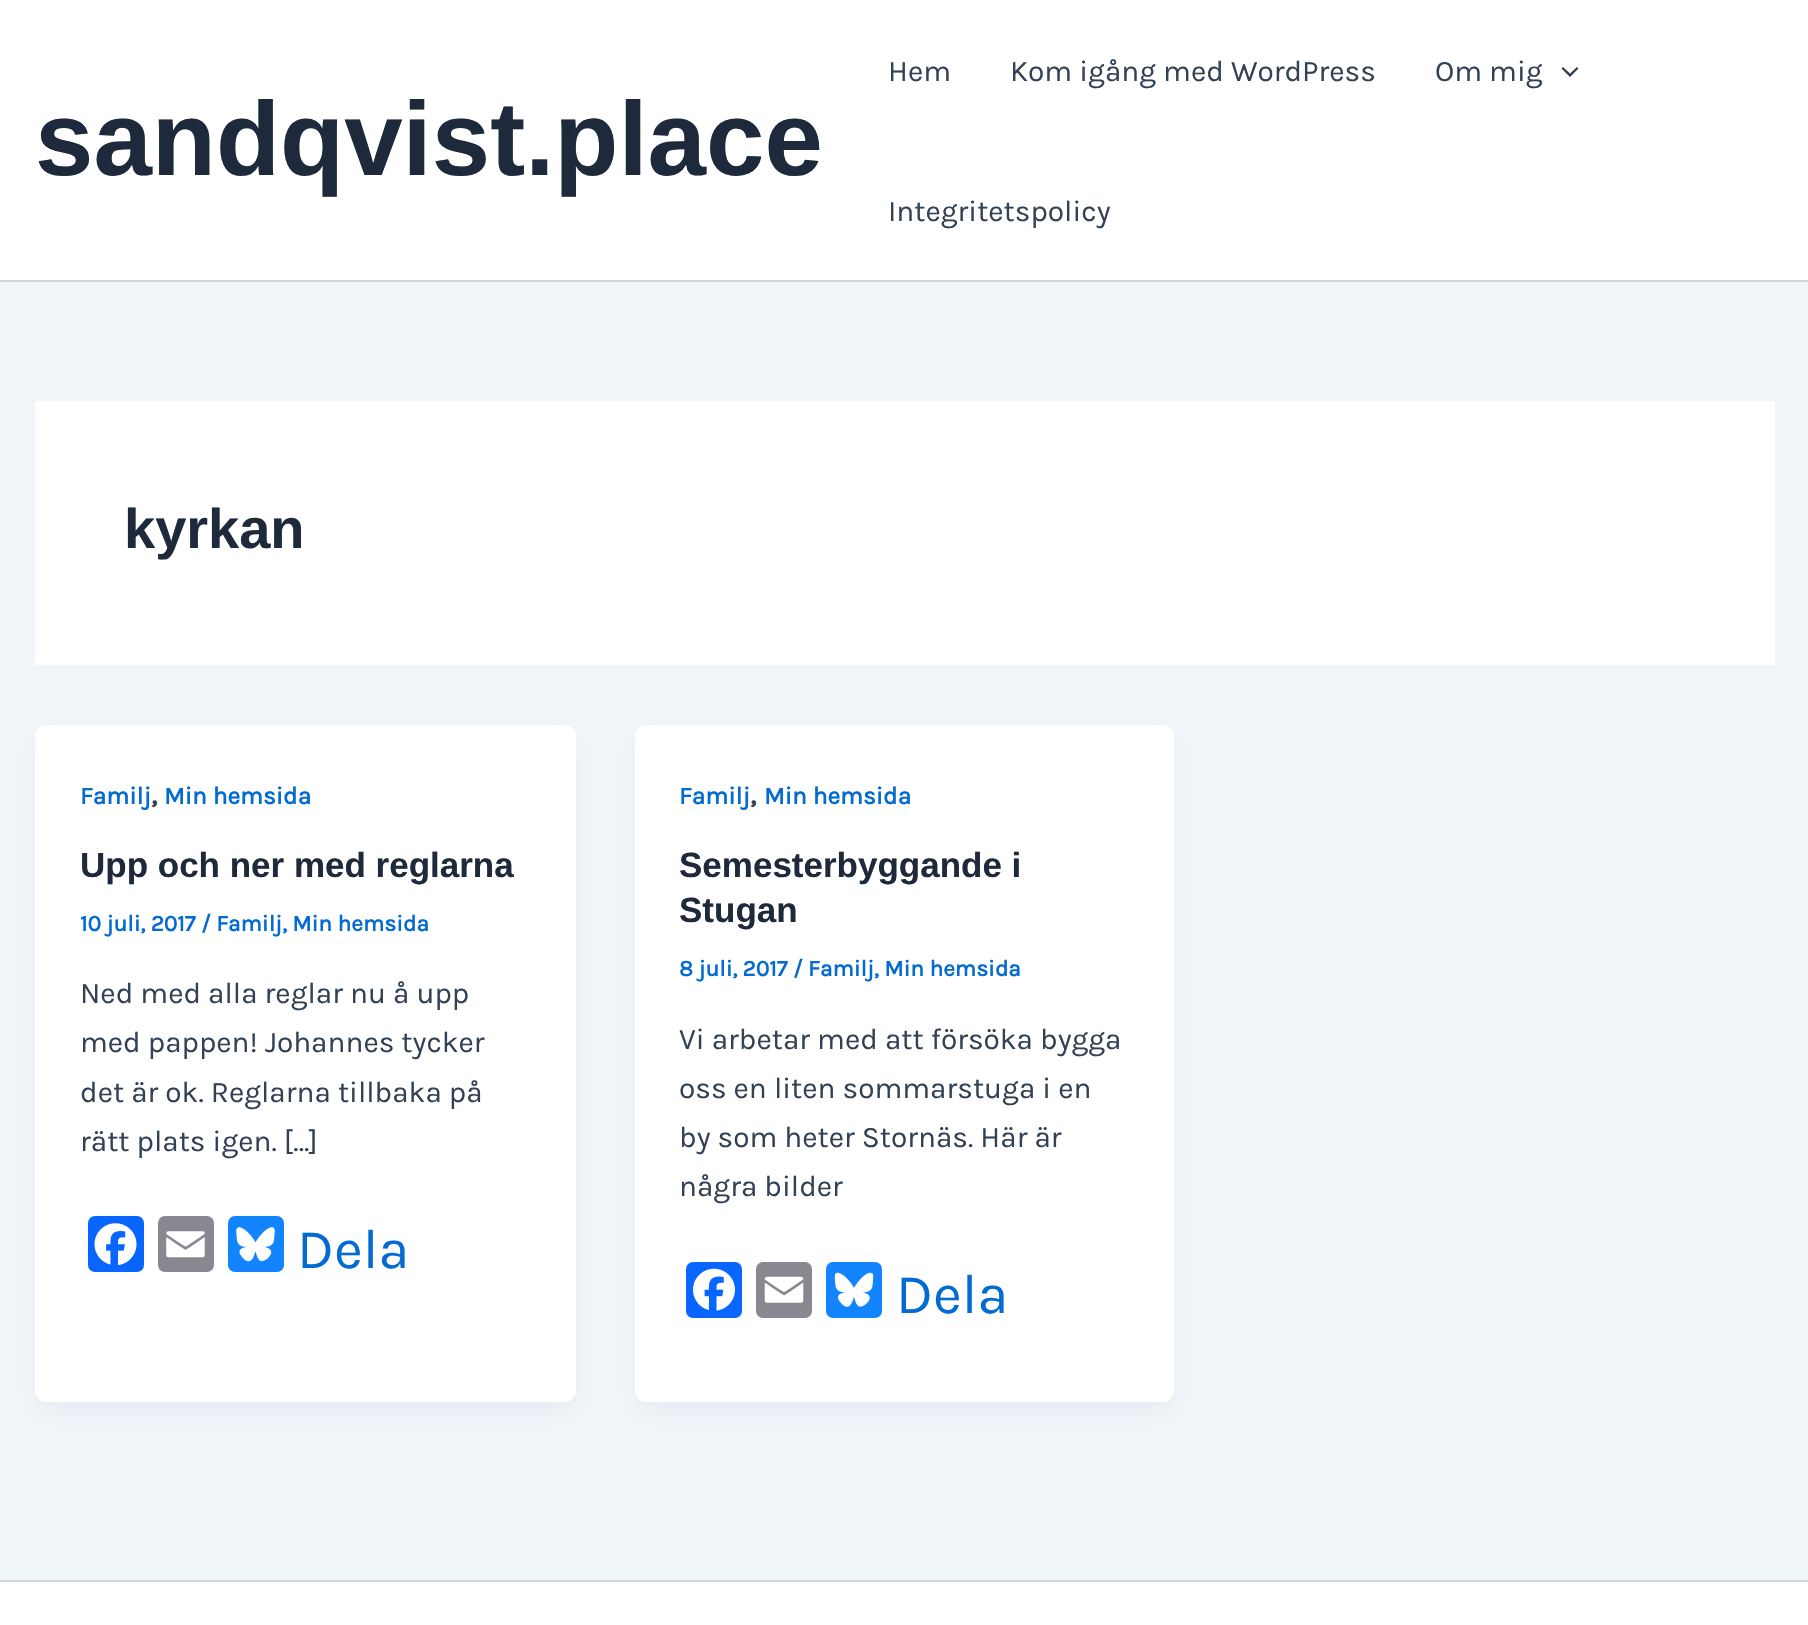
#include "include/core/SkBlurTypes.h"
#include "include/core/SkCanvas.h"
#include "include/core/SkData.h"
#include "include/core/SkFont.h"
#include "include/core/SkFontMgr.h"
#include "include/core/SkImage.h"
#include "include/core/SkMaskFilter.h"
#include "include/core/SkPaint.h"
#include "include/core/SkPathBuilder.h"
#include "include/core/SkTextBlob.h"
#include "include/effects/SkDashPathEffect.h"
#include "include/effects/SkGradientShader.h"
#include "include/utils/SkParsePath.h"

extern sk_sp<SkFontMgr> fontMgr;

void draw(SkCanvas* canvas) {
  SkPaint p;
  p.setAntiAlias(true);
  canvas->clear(SkColorSetRGB(240, 245, 250));
  p.setColor(SK_ColorWHITE);
  canvas->drawRect(SkRect::MakeLTRB(0, 0, 1808, 280), p);
  p.setColor(SkColorSetRGB(209, 213, 219));
  canvas->drawRect(SkRect::MakeLTRB(0, 280, 1808, 282), p);
  p.setColor(SkColorSetRGB(51, 65, 85));
  canvas->drawPath(SkPathBuilder().moveTo(1561.5f, 68.5f).lineTo(1570, 77).lineTo(1578.5f, 68.5f).lineTo(1577, 67).lineTo(1570, 73.5f).lineTo(1563, 67).close().detach(), p);
  p.setColor(SK_ColorWHITE);
  canvas->drawRect(SkRect::MakeLTRB(35, 401, 1775, 665), p);
  p.setColor(SkColorSetARGB(13, 16, 24, 40));
  p.setMaskFilter(SkMaskFilter::MakeBlur(kNormal_SkBlurStyle, 13));
  canvas->drawRoundRect(SkRect::MakeLTRB(39, 739, 572, 1409), 7, 7, p);
  p.setMaskFilter(nullptr);
  p.setColor(SK_ColorWHITE);
  canvas->drawRoundRect(SkRect::MakeLTRB(35, 725, 576, 1402), 11, 11, p);
  p.setColor(SkColorSetRGB(8, 102, 255));
  canvas->drawRoundRect(SkRect::MakeLTRB(88, 1216, 144, 1272), 7, 7, p);
  canvas->drawImageRect(SkImages::DeferredFromEncodedData(SkData::MakeFromFileName("images/1.png")), SkRect::MakeLTRB(94, 1223, 137, 1266), SkSamplingOptions());
  p.setColor(SkColorSetRGB(136, 137, 144));
  canvas->drawRoundRect(SkRect::MakeLTRB(158, 1216, 214, 1272), 7, 7, p);
  canvas->drawImageRect(SkImages::DeferredFromEncodedData(SkData::MakeFromFileName("images/2.png")), SkRect::MakeLTRB(166, 1231, 205, 1258), SkSamplingOptions());
  p.setColor(SkColorSetRGB(18, 133, 254));
  canvas->drawRoundRect(SkRect::MakeLTRB(228, 1216, 284, 1272), 7, 7, p);
  canvas->drawImageRect(SkImages::DeferredFromEncodedData(SkData::MakeFromFileName("images/3.png")), SkRect::MakeLTRB(236, 1227, 275, 1262), SkSamplingOptions());
  p.setColor(SkColorSetARGB(13, 16, 24, 40));
  p.setMaskFilter(SkMaskFilter::MakeBlur(kNormal_SkBlurStyle, 13));
  canvas->drawRoundRect(SkRect::MakeLTRB(639, 739, 1171, 1409), 7, 7, p);
  p.setMaskFilter(nullptr);
  p.setColor(SK_ColorWHITE);
  canvas->drawRoundRect(SkRect::MakeLTRB(635, 725, 1174, 1402), 11, 11, p);
  p.setColor(SkColorSetRGB(8, 102, 255));
  canvas->drawRoundRect(SkRect::MakeLTRB(686, 1262, 742, 1318), 7, 7, p);
  canvas->drawImageRect(SkImages::DeferredFromEncodedData(SkData::MakeFromFileName("images/4.png")), SkRect::MakeLTRB(693, 1268, 735, 1311), SkSamplingOptions());
  p.setColor(SkColorSetRGB(136, 137, 144));
  canvas->drawRoundRect(SkRect::MakeLTRB(756, 1262, 812, 1318), 7, 7, p);
  canvas->drawImageRect(SkImages::DeferredFromEncodedData(SkData::MakeFromFileName("images/5.png")), SkRect::MakeLTRB(764, 1276, 804, 1303), SkSamplingOptions());
  p.setColor(SkColorSetRGB(18, 133, 254));
  canvas->drawRoundRect(SkRect::MakeLTRB(826, 1262, 882, 1318), 7, 7, p);
  canvas->drawImageRect(SkImages::DeferredFromEncodedData(SkData::MakeFromFileName("images/6.png")), SkRect::MakeLTRB(834, 1272, 874, 1307), SkSamplingOptions());
  p.setColor(SK_ColorWHITE);
  canvas->drawRect(SkRect::MakeLTRB(0, 1582, 1808, 1625), p);
  p.setColor(SkColorSetRGB(209, 213, 219));
  canvas->drawRect(SkRect::MakeLTRB(0, 1580, 1808, 1582), p);
  SkFont font1(fontMgr->matchFamilyStyle("Liberation Sans", SkFontStyle::Bold()), 105);
  font1.setSubpixel(true);
  p.setColor(SkColorSetRGB(30, 41, 59));
  canvas->drawString("sandqvist.place", 35, 175, font1, p);
  SkFont font2(fontMgr->matchFamilyStyle("Karla", SkFontStyle::Normal()), 29.75f);
  font2.setSubpixel(true);
  p.setColor(SkColorSetRGB(51, 65, 85));
  canvas->drawString("Hem", 888, 81, font2, p);
  canvas->drawString("Kom igång med WordPress", 1010, 81, font2, p);
  canvas->drawString("Om mig", 1435, 81, font2, p);
  canvas->drawString("Integritetspolicy", 888, 221, font2, p);
  SkFont font3(fontMgr->matchFamilyStyle("Liberation Sans", SkFontStyle::Bold()), 56);
  font3.setSubpixel(true);
  p.setColor(SkColorSetRGB(30, 41, 59));
  canvas->drawString("kyrkan", 124, 548, font3, p);
  SkFont font4(fontMgr->matchFamilyStyle("Karla", SkFontStyle::Bold()), 24.5f);
  font4.setSubpixel(true);
  p.setColor(SkColorSetRGB(4, 107, 210));
  canvas->drawString("Familj", 80, 804, font4, p);
  SkFont font5(fontMgr->matchFamilyStyle("Karla", SkFontStyle::Bold()), 29.75f);
  font5.setSubpixel(true);
  p.setColor(SkColorSetRGB(51, 65, 85));
  canvas->drawString(",", 151, 804, font5, p);
  p.setColor(SkColorSetRGB(4, 107, 210));
  canvas->drawString("Min hemsida", 164, 804, font4, p);
  SkFont font6(fontMgr->matchFamilyStyle("Liberation Sans", SkFontStyle::Bold()), 35);
  font6.setSubpixel(true);
  p.setColor(SkColorSetRGB(30, 41, 59));
  canvas->drawString("Upp och ner med reglarna", 80, 877, font6, p);
  SkFont font7(fontMgr->matchFamilyStyle("Karla", SkFontStyle::Bold()), 22.75f);
  font7.setSubpixel(true);
  p.setColor(SkColorSetRGB(4, 107, 210));
  canvas->drawString("10 juli, 2017 / Familj, Min hemsida", 80, 931, font7, p);
  p.setColor(SkColorSetRGB(51, 65, 85));
  canvas->drawString("Ned med alla reglar nu å upp", 80, 1003, font2, p);
  canvas->drawString("med pappen! Johannes tycker", 80, 1052, font2, p);
  canvas->drawString("det är ok. Reglarna tillbaka på", 80, 1102, font2, p);
  canvas->drawString("rätt plats igen. […]", 80, 1151, font2, p);
  SkFont font8(fontMgr->matchFamilyStyle("Karla", SkFontStyle::Normal()), 56);
  font8.setSubpixel(true);
  p.setColor(SkColorSetRGB(4, 107, 210));
  canvas->drawString("Dela", 297, 1268, font8, p);
  canvas->drawString("Familj", 679, 804, font4, p);
  p.setColor(SkColorSetRGB(51, 65, 85));
  canvas->drawString(",", 750, 804, font5, p);
  p.setColor(SkColorSetRGB(4, 107, 210));
  canvas->drawString("Min hemsida", 764, 804, font4, p);
  p.setColor(SkColorSetRGB(30, 41, 59));
  canvas->drawString("Semesterbyggande i", 679, 877, font6, p);
  canvas->drawString("Stugan", 679, 922, font6, p);
  p.setColor(SkColorSetRGB(4, 107, 210));
  canvas->drawString("8 juli, 2017 / Familj, Min hemsida", 679, 976, font7, p);
  p.setColor(SkColorSetRGB(51, 65, 85));
  canvas->drawString("Vi arbetar med att försöka bygga", 679, 1049, font2, p);
  canvas->drawString("oss en liten sommarstuga i en", 679, 1098, font2, p);
  canvas->drawString("by som heter Stornäs. Här är", 679, 1147, font2, p);
  canvas->drawString("några bilder", 679, 1196, font2, p);
  p.setColor(SkColorSetRGB(4, 107, 210));
  canvas->drawString("Dela", 896, 1313, font8, p);
}
